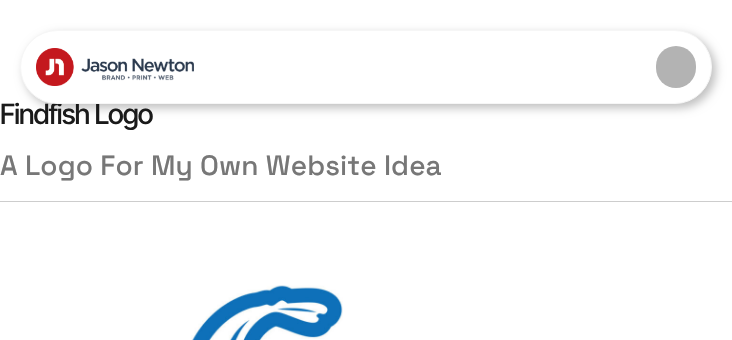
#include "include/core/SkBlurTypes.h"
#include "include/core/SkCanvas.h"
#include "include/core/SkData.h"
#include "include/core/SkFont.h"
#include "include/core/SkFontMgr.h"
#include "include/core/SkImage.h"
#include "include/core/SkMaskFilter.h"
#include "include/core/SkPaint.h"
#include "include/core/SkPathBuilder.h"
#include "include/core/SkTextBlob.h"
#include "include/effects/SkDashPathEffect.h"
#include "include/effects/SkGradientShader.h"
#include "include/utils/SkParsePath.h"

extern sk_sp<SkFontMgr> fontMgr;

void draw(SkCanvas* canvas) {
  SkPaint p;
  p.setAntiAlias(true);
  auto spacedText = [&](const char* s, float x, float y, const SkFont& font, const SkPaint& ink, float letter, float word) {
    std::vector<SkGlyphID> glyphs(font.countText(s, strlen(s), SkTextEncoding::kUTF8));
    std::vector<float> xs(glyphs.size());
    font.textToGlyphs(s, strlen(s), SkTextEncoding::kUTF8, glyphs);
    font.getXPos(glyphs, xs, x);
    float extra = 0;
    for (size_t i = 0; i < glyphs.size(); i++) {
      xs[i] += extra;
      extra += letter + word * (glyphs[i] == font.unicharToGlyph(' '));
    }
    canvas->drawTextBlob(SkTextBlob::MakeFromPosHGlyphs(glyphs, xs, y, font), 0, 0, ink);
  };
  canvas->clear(SK_ColorWHITE);
  p.setColor(SkColorSetARGB(64, 0, 0, 0));
  p.setMaskFilter(SkMaskFilter::MakeBlur(kNormal_SkBlurStyle, 5));
  canvas->drawRoundRect(SkRect::MakeLTRB(24, 34, 716, 108), 37, 37, p);
  p.setMaskFilter(nullptr);
  p.setColor(SkColorSetRGB(205, 205, 205));
  canvas->drawRect(SkRect::MakeLTRB(0, 201, 732, 202), p);
  canvas->drawImageRect(SkImages::DeferredFromEncodedData(SkData::MakeFromFileName("images/2.png")), SkRect::MakeLTRB(191, 285, 343, 340), SkSamplingOptions());
  SkFont font1(fontMgr->matchFamilyStyle("Inter Tight", SkFontStyle(500, SkFontStyle::kNormal_Width, SkFontStyle::kUpright_Slant)), 28);
  font1.setSubpixel(true);
  p.setColor(SkColorSetRGB(26, 26, 26));
  spacedText("Findfish Logo", 0, 124, font1, p, -1, 0);
  p.setColor(SK_ColorWHITE);
  canvas->drawRoundRect(SkRect::MakeLTRB(20.5f, 30.5f, 711.5f, 103.5f), 36.5f, 36.5f, p);
  p.setStyle(SkPaint::kStroke_Style);
  p.setStrokeWidth(1);
  p.setColor(SkColorSetRGB(246, 246, 246));
  canvas->drawRoundRect(SkRect::MakeLTRB(20.5f, 30.5f, 711.5f, 103.5f), 36.5f, 36.5f, p);
  p.setStyle(SkPaint::kFill_Style);
  p.setColor(SkColorSetRGB(179, 179, 179));
  canvas->drawRoundRect(SkRect::MakeLTRB(656, 46, 696, 88), 20, 20, p);
  canvas->drawImageRect(SkImages::DeferredFromEncodedData(SkData::MakeFromFileName("images/1.png")), SkRect::MakeLTRB(36, 48, 194, 86), SkSamplingOptions());
  SkFont font2(fontMgr->matchFamilyStyle("Space Grotesk", SkFontStyle(500, SkFontStyle::kNormal_Width, SkFontStyle::kUpright_Slant)), 28);
  font2.setSubpixel(true);
  p.setColor(SkColorSetRGB(119, 119, 119));
  spacedText("A Logo For My Own Website Idea", 0, 175, font2, p, 0.1f, 0);
}
